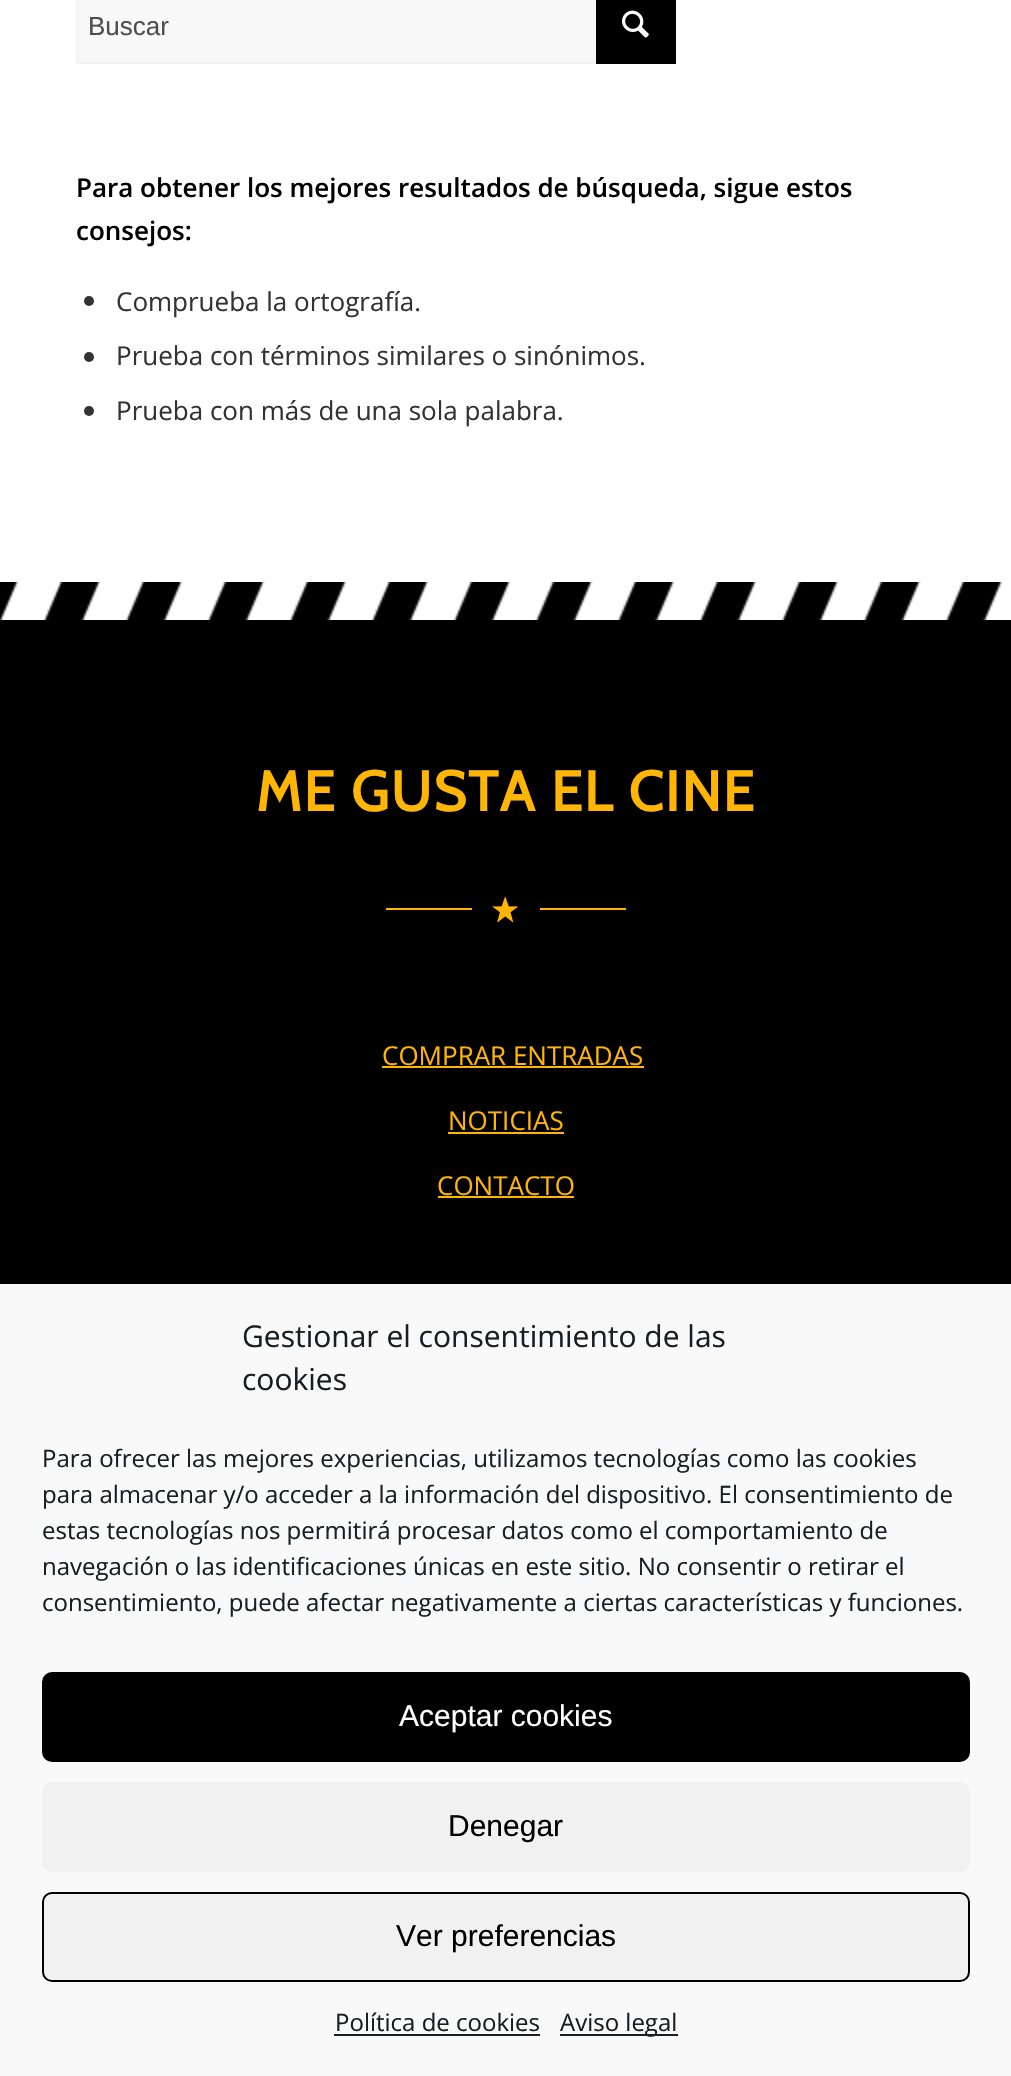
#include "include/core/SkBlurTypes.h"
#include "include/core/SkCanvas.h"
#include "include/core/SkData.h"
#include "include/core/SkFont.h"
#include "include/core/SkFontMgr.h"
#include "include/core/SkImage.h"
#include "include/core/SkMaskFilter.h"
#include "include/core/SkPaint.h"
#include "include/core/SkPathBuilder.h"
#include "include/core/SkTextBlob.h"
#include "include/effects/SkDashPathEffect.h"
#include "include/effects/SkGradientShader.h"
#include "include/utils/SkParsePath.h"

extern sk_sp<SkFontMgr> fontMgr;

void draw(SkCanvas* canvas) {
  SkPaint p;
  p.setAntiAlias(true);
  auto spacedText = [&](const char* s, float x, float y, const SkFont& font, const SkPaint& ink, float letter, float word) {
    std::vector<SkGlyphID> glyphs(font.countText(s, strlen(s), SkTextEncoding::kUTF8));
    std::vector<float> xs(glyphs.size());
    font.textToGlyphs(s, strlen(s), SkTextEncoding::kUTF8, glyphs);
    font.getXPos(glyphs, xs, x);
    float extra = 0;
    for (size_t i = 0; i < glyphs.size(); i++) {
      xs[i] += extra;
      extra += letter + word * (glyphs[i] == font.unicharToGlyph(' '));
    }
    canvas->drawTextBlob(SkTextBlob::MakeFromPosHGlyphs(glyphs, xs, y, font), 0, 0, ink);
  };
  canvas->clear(SK_ColorWHITE);
  p.setColor(SkColorSetRGB(248, 248, 248));
  canvas->drawRect(SkRect::MakeLTRB(78, 0, 596, 62), p);
  p.setStyle(SkPaint::kStroke_Style);
  p.setStrokeWidth(2);
  p.setColor(SkColorSetRGB(242, 242, 242));
  canvas->drawRect(SkRect::MakeLTRB(77, -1, 675, 63), p);
  p.setStyle(SkPaint::kFill_Style);
  p.setColor(SK_ColorBLACK);
  canvas->drawRect(SkRect::MakeLTRB(596, 0, 676, 64), p);
  canvas->drawImageRect(SkImages::DeferredFromEncodedData(SkData::MakeFromFileName("images/1.png")), SkRect::MakeLTRB(622, 10, 649, 38), SkSamplingOptions());
  p.setColor(SkColorSetRGB(51, 51, 51));
  canvas->drawCircle(89, 301, 5, p);
  canvas->drawCircle(89, 357, 5, p);
  canvas->drawCircle(89, 411, 5, p);
  p.setColor(SK_ColorBLACK);
  canvas->drawRect(SkRect::MakeLTRB(0, 582, 1011, 1284), p);
  canvas->drawImageRect(SkImages::DeferredFromEncodedData(SkData::MakeFromFileName("images/2.png")), SkRect::MakeLTRB(0, 582, 1011, 620), SkSamplingOptions());
  p.setColor(SkColorSetRGB(255, 181, 6));
  canvas->drawRect(SkRect::MakeLTRB(386, 908, 472, 910), p);
  canvas->drawImageRect(SkImages::DeferredFromEncodedData(SkData::MakeFromFileName("images/3.png")), SkRect::MakeLTRB(492, 896, 519, 923), SkSamplingOptions());
  canvas->drawRect(SkRect::MakeLTRB(540, 908, 626, 910), p);
  canvas->drawRect(SkRect::MakeLTRB(382, 1066, 644, 1068), p);
  canvas->drawRect(SkRect::MakeLTRB(448, 1132, 564, 1134), p);
  canvas->drawRect(SkRect::MakeLTRB(438, 1196, 574, 1198), p);
  p.setColor(SkColorSetRGB(249, 249, 249));
  canvas->drawRect(SkRect::MakeLTRB(0, 1284, 1011, 2076), p);
  p.setColor(SK_ColorBLACK);
  canvas->drawRoundRect(SkRect::MakeLTRB(43, 1673, 969, 1761), 9, 9, p);
  p.setStyle(SkPaint::kStroke_Style);
  canvas->drawRoundRect(SkRect::MakeLTRB(43, 1673, 969, 1761), 9, 9, p);
  p.setStyle(SkPaint::kFill_Style);
  p.setColor(SkColorSetRGB(241, 241, 241));
  canvas->drawRoundRect(SkRect::MakeLTRB(42, 1782, 970, 1872), 10, 10, p);
  canvas->drawRoundRect(SkRect::MakeLTRB(43, 1893, 969, 1981), 9, 9, p);
  p.setStyle(SkPaint::kStroke_Style);
  p.setColor(SK_ColorBLACK);
  canvas->drawRoundRect(SkRect::MakeLTRB(43, 1893, 969, 1981), 9, 9, p);
  p.setStyle(SkPaint::kFill_Style);
  p.setColor(SkColorSetRGB(25, 30, 35));
  canvas->drawRect(SkRect::MakeLTRB(334, 2034, 540, 2036), p);
  canvas->drawRect(SkRect::MakeLTRB(560, 2034, 678, 2036), p);
  SkFont font1(fontMgr->matchFamilyStyle("Liberation Sans", SkFontStyle::Normal()), 26);
  font1.setSubpixel(true);
  p.setColor(SkColorSetRGB(77, 77, 77));
  canvas->drawString("Buscar", 88, 35, font1, p);
  SkFont font2(fontMgr->matchFamilyStyle("Open Sans", SkFontStyle(600, SkFontStyle::kNormal_Width, SkFontStyle::kUpright_Slant)), 26);
  font2.setSubpixel(true);
  p.setColor(SK_ColorBLACK);
  canvas->drawString("Para obtener los mejores resultados de búsqueda, sigue estos", 76, 197, font2, p);
  canvas->drawString("consejos:", 76, 240, font2, p);
  SkFont font3(fontMgr->matchFamilyStyle("Open Sans", SkFontStyle::Normal()), 26);
  font3.setSubpixel(true);
  p.setColor(SkColorSetRGB(51, 51, 51));
  canvas->drawString("Comprueba la ortografía.", 116, 311, font3, p);
  canvas->drawString("Prueba con términos similares o sinónimos.", 116, 365, font3, p);
  canvas->drawString("Prueba con más de una sola palabra.", 116, 420, font3, p);
  SkFont font4(fontMgr->matchFamilyStyle("Cabin", SkFontStyle::Bold()), 56);
  font4.setSubpixel(true);
  p.setColor(SkColorSetRGB(255, 181, 6));
  spacedText("ME GUSTA EL CINE", 256, 811, font4, p, 2, 0);
  canvas->drawString("COMPRAR ENTRADAS", 382, 1065, font3, p);
  canvas->drawString("NOTICIAS", 448, 1130, font3, p);
  canvas->drawString("CONTACTO", 437, 1195, font3, p);
  SkFont font5(fontMgr->matchFamilyStyle("Open Sans", SkFontStyle::Normal()), 30);
  font5.setSubpixel(true);
  p.setColor(SkColorSetRGB(25, 30, 35));
  canvas->drawString("Gestionar el consentimiento de las", 242, 1347, font5, p);
  canvas->drawString("cookies", 242, 1390, font5, p);
  SkFont font6(fontMgr->matchFamilyStyle("Open Sans", SkFontStyle::Normal()), 24);
  font6.setSubpixel(true);
  canvas->drawString("Para ofrecer las mejores experiencias, utilizamos tecnologías como las cookies", 42, 1467, font6, p);
  canvas->drawString("para almacenar y/o acceder a la información del dispositivo. El consentimiento de", 42, 1503, font6, p);
  canvas->drawString("estas tecnologías nos permitirá procesar datos como el comportamiento de", 42, 1539, font6, p);
  canvas->drawString("navegación o las identificaciones únicas en este sitio. No consentir o retirar el", 42, 1575, font6, p);
  canvas->drawString("consentimiento, puede afectar negativamente a ciertas características y funciones.", 42, 1611, font6, p);
  SkFont font7(fontMgr->matchFamilyStyle("Liberation Sans", SkFontStyle::Normal()), 30);
  font7.setSubpixel(true);
  p.setColor(SK_ColorWHITE);
  canvas->drawString("Aceptar cookies", 399, 1726, font7, p);
  p.setColor(SK_ColorBLACK);
  canvas->drawString("Denegar", 448, 1836, font7, p);
  canvas->drawString("Ver preferencias", 396, 1946, font7, p);
  p.setColor(SkColorSetRGB(25, 30, 35));
  canvas->drawString("Política de cookies", 335, 2031, font6, p);
  canvas->drawString("Aviso legal", 560, 2031, font6, p);
}
